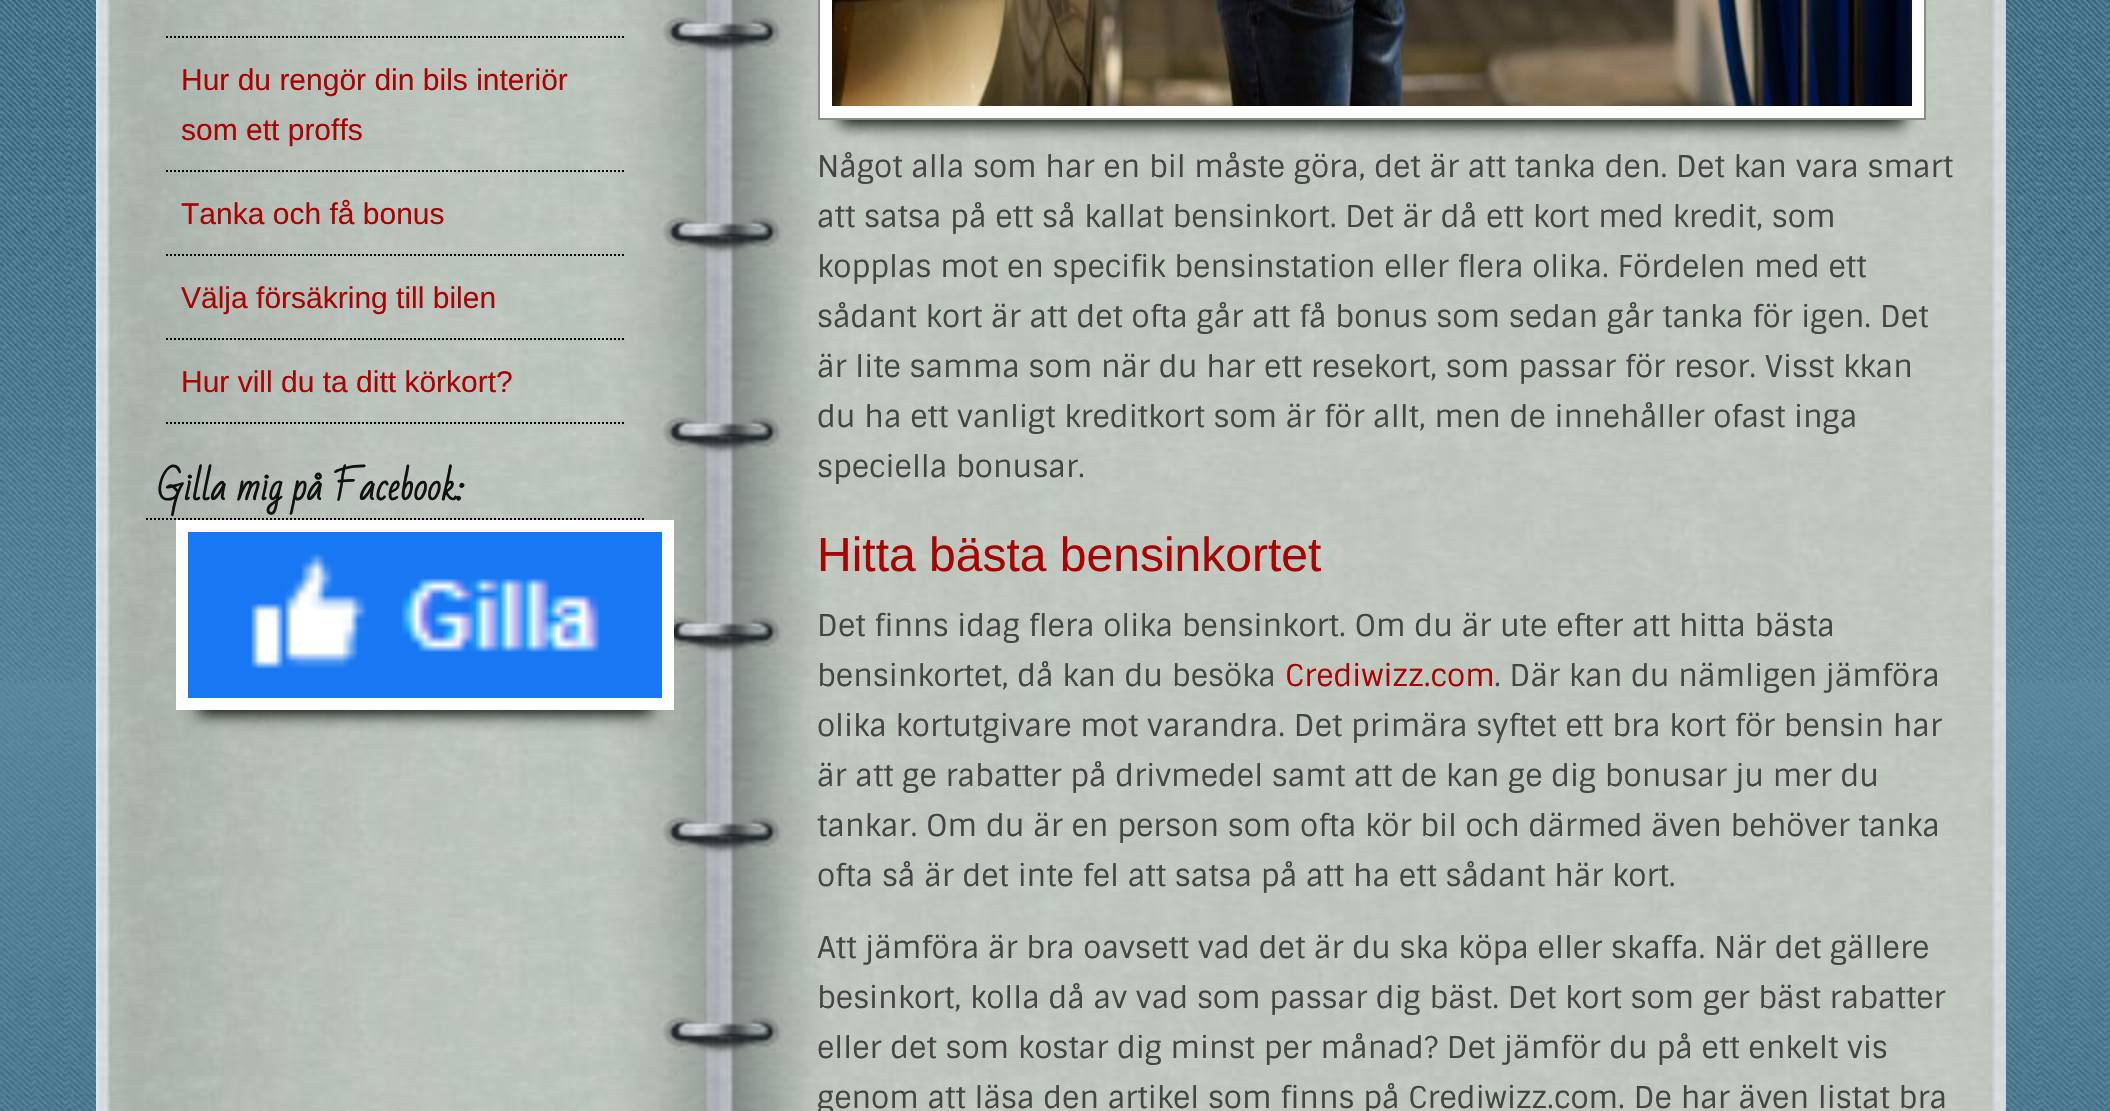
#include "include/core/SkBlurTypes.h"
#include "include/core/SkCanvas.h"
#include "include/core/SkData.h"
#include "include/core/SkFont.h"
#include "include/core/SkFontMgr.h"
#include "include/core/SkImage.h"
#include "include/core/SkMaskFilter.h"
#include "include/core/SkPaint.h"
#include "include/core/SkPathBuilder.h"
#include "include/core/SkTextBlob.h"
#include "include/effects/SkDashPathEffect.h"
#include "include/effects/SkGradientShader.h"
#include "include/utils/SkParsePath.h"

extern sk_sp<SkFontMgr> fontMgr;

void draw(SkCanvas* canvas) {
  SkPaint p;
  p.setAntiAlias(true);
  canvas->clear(SK_ColorWHITE);
  canvas->drawImageRect(SkImages::DeferredFromEncodedData(SkData::MakeFromFileName("images/1.png")), SkRect::MakeLTRB(0, 0, 2110, 1111), SkSamplingOptions());
  canvas->drawImageRect(SkImages::DeferredFromEncodedData(SkData::MakeFromFileName("images/2.png")), SkRect::MakeLTRB(96, 0, 2006, 1111), SkSamplingOptions());
  p.setStyle(SkPaint::kStroke_Style);
  p.setStrokeWidth(2);
  p.setColor(SK_ColorBLACK);
  p.setPathEffect(SkDashPathEffect::Make({{2, 2}}, 0));
  canvas->drawPath(SkPathBuilder().moveTo(166, 37).lineTo(626, 37).detach(), p);
  p.setPathEffect(nullptr);
  p.setPathEffect(SkDashPathEffect::Make({{2, 2}}, 0));
  canvas->drawPath(SkPathBuilder().moveTo(166, 171).lineTo(626, 171).detach(), p);
  p.setPathEffect(nullptr);
  p.setPathEffect(SkDashPathEffect::Make({{2, 2}}, 0));
  canvas->drawPath(SkPathBuilder().moveTo(166, 255).lineTo(626, 255).detach(), p);
  p.setPathEffect(nullptr);
  p.setPathEffect(SkDashPathEffect::Make({{2, 2}}, 0));
  canvas->drawPath(SkPathBuilder().moveTo(166, 339).lineTo(626, 339).detach(), p);
  p.setPathEffect(nullptr);
  p.setPathEffect(SkDashPathEffect::Make({{2, 2}}, 0));
  canvas->drawPath(SkPathBuilder().moveTo(166, 423).lineTo(626, 423).detach(), p);
  p.setPathEffect(nullptr);
  p.setPathEffect(SkDashPathEffect::Make({{2, 2}}, 0));
  canvas->drawPath(SkPathBuilder().moveTo(146, 519).lineTo(646, 519).detach(), p);
  p.setPathEffect(nullptr);
  p.setStyle(SkPaint::kFill_Style);
  p.setMaskFilter(SkMaskFilter::MakeBlur(kNormal_SkBlurStyle, 8));
  canvas->drawRect(SkRect::MakeLTRB(198, 568, 652, 714), p);
  p.setMaskFilter(nullptr);
  p.setColor(SK_ColorWHITE);
  canvas->drawRect(SkRect::MakeLTRB(176, 520, 674, 710), p);
  canvas->drawImageRect(SkImages::DeferredFromEncodedData(SkData::MakeFromFileName("images/3.png")), SkRect::MakeLTRB(188, 532, 662, 698), SkSamplingOptions());
  p.setColor(SK_ColorBLACK);
  p.setMaskFilter(SkMaskFilter::MakeBlur(kNormal_SkBlurStyle, 8));
  canvas->drawRect(SkRect::MakeLTRB(840, -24, 1904, 124), p);
  p.setMaskFilter(nullptr);
  p.setColor(SK_ColorWHITE);
  canvas->drawRect(SkRect::MakeLTRB(819, -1, 1925, 119), p);
  p.setStyle(SkPaint::kStroke_Style);
  p.setColor(SkColorSetRGB(140, 140, 140));
  canvas->drawRect(SkRect::MakeLTRB(819, -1, 1925, 119), p);
  canvas->drawImageRect(SkImages::DeferredFromEncodedData(SkData::MakeFromFileName("images/4.png")), SkRect::MakeLTRB(832, 0, 1912, 106), SkSamplingOptions());
  SkFont font1(fontMgr->matchFamilyStyle("Liberation Sans", SkFontStyle::Normal()), 30);
  font1.setSubpixel(true);
  p.setStyle(SkPaint::kFill_Style);
  p.setColor(SkColorSetRGB(167, 3, 3));
  canvas->drawString("Hur du rengör din bils interiör", 181, 90, font1, p);
  canvas->drawString("som ett proffs", 181, 140, font1, p);
  canvas->drawString("Tanka och få bonus", 181, 224, font1, p);
  canvas->drawString("Välja försäkring till bilen", 181, 308, font1, p);
  canvas->drawString("Hur vill du ta ditt körkort?", 181, 392, font1, p);
  SkFont font2(fontMgr->matchFamilyStyle("Bad Script", SkFontStyle::Bold()), 36);
  font2.setSubpixel(true);
  p.setColor(SkColorSetRGB(17, 17, 17));
  canvas->drawString("Gilla mig på Facebook:", 157, 500, font2, p);
  SkFont font3(fontMgr->matchFamilyStyle("Sintony", SkFontStyle::Normal()), 30);
  font3.setSubpixel(true);
  p.setColor(SkColorSetRGB(68, 68, 68));
  canvas->drawString("Något alla som har en bil måste göra, det är att tanka den. Det kan vara smart", 817, 177, font3, p);
  canvas->drawString("att satsa på ett så kallat bensinkort. Det är då ett kort med kredit, som", 817, 227, font3, p);
  canvas->drawString("kopplas mot en specifik bensinstation eller flera olika. Fördelen med ett", 817, 277, font3, p);
  canvas->drawString("sådant kort är att det ofta går att få bonus som sedan går tanka för igen. Det", 817, 327, font3, p);
  canvas->drawString("är lite samma som när du har ett resekort, som passar för resor. Visst kkan", 817, 377, font3, p);
  canvas->drawString("du ha ett vanligt kreditkort som är för allt, men de innehåller ofast inga", 817, 427, font3, p);
  canvas->drawString("speciella bonusar.", 817, 477, font3, p);
  SkFont font4(fontMgr->matchFamilyStyle("Liberation Sans", SkFontStyle::Normal()), 48);
  font4.setSubpixel(true);
  p.setColor(SkColorSetRGB(167, 3, 3));
  canvas->drawString("Hitta bästa bensinkortet", 817, 571, font4, p);
  p.setColor(SkColorSetRGB(68, 68, 68));
  canvas->drawString("Det finns idag flera olika bensinkort. Om du är ute efter att hitta bästa", 817, 636, font3, p);
  canvas->drawString("bensinkortet, då kan du besöka", 817, 686, font3, p);
  p.setColor(SkColorSetRGB(167, 3, 3));
  canvas->drawString("Crediwizz.com", 1285, 686, font3, p);
  p.setColor(SkColorSetRGB(68, 68, 68));
  canvas->drawString(". Där kan du nämligen jämföra", 1494, 686, font3, p);
  canvas->drawString("olika kortutgivare mot varandra. Det primära syftet ett bra kort för bensin har", 817, 736, font3, p);
  canvas->drawString("är att ge rabatter på drivmedel samt att de kan ge dig bonusar ju mer du", 817, 786, font3, p);
  canvas->drawString("tankar. Om du är en person som ofta kör bil och därmed även behöver tanka", 817, 836, font3, p);
  canvas->drawString("ofta så är det inte fel att satsa på att ha ett sådant här kort.", 817, 886, font3, p);
  canvas->drawString("Att jämföra är bra oavsett vad det är du ska köpa eller skaffa. När det gällere", 817, 958, font3, p);
  canvas->drawString("besinkort, kolla då av vad som passar dig bäst. Det kort som ger bäst rabatter", 817, 1008, font3, p);
  canvas->drawString("eller det som kostar dig minst per månad? Det jämför du på ett enkelt vis", 817, 1058, font3, p);
  canvas->drawString("genom att läsa den artikel som finns på Crediwizz.com. De har även listat bra", 817, 1108, font3, p);
}
